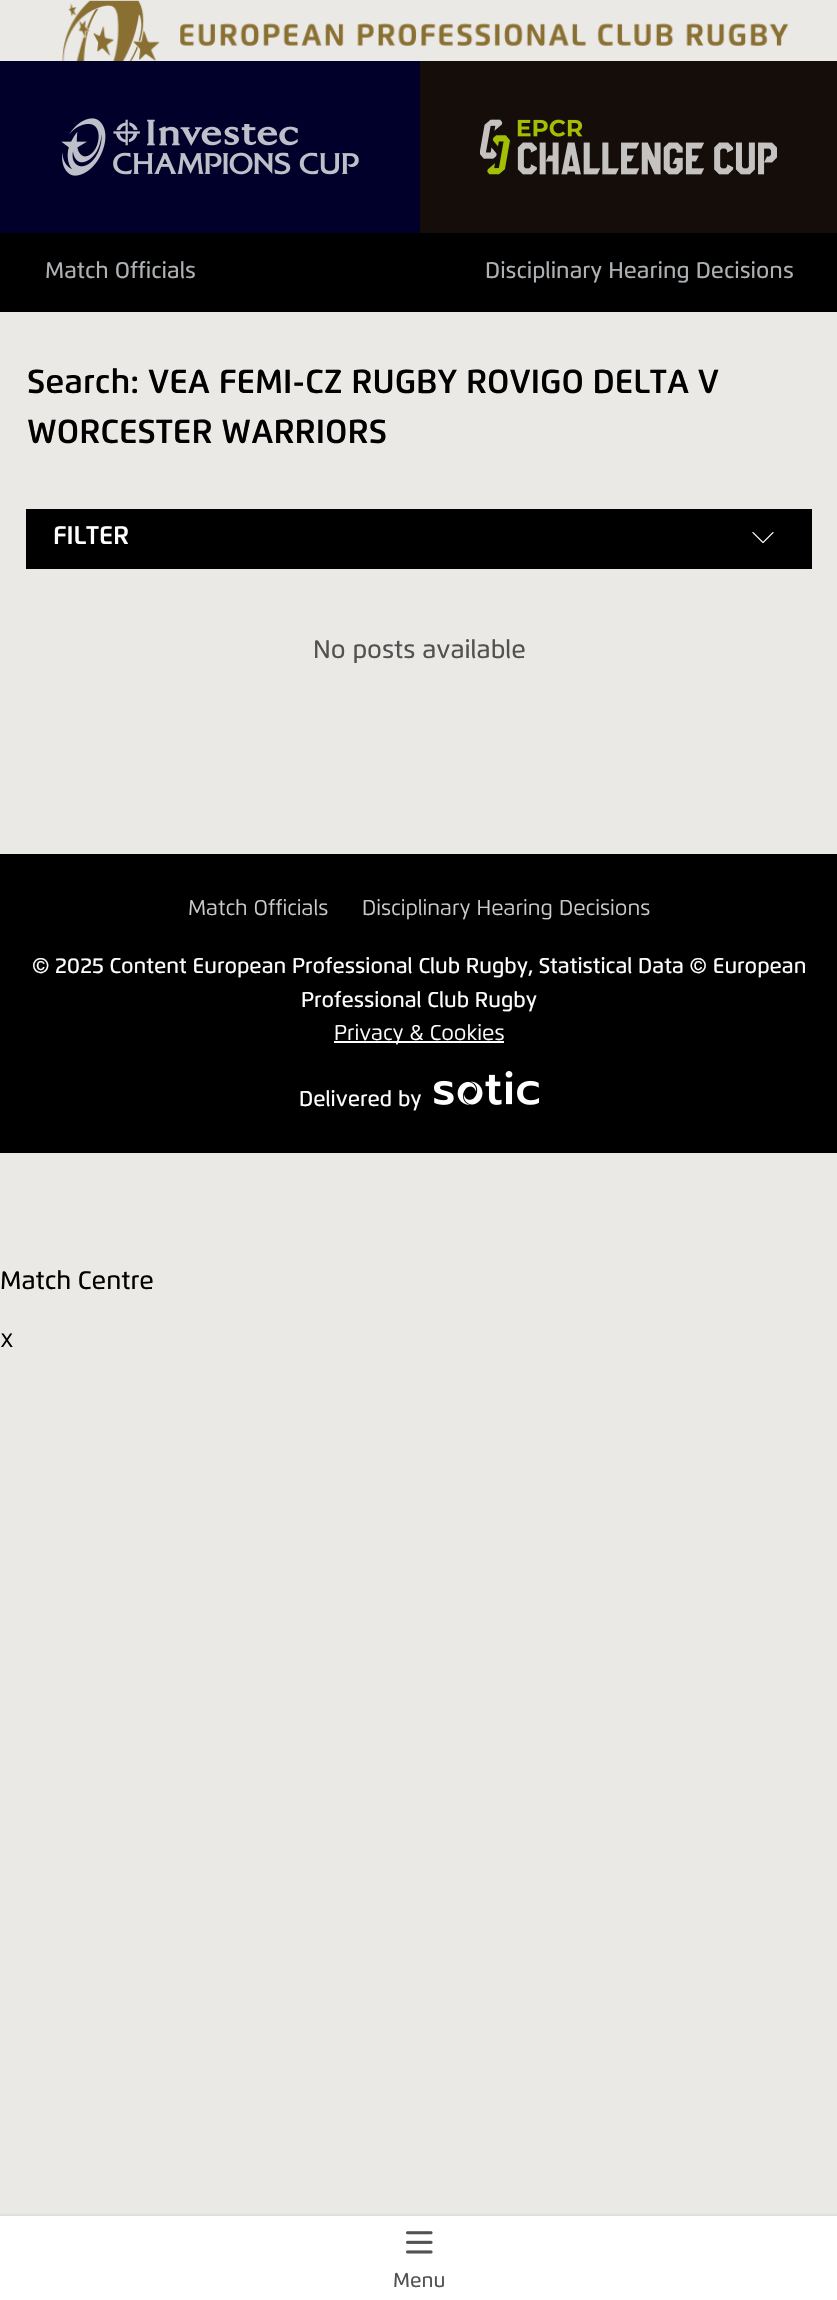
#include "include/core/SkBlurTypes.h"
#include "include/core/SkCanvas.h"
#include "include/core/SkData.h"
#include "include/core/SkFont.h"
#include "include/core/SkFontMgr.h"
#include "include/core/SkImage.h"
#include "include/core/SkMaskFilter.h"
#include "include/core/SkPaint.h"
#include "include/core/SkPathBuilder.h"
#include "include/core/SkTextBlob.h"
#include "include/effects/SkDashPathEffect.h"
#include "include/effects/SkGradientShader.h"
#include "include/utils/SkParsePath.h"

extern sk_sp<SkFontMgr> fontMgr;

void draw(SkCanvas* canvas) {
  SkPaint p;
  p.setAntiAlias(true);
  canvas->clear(SkColorSetRGB(234, 233, 230));
  canvas->drawImageRect(SkImages::DeferredFromEncodedData(SkData::MakeFromFileName("images/1.png")), SkRect::MakeLTRB(62, 0, 789, 61), SkSamplingOptions());
  p.setColor(SkColorSetRGB(0, 0, 42));
  canvas->drawRect(SkRect::MakeLTRB(0, 61, 420, 233), p);
  canvas->drawImageRect(SkImages::DeferredFromEncodedData(SkData::MakeFromFileName("images/2.png")), SkRect::MakeLTRB(61, 118, 359, 176), SkSamplingOptions());
  p.setColor(SkColorSetRGB(20, 13, 10));
  canvas->drawRect(SkRect::MakeLTRB(420, 61, 837, 233), p);
  canvas->drawImageRect(SkImages::DeferredFromEncodedData(SkData::MakeFromFileName("images/3.png")), SkRect::MakeLTRB(480, 119, 777, 175), SkSamplingOptions());
  p.setColor(SK_ColorBLACK);
  canvas->drawRect(SkRect::MakeLTRB(0, 233, 837, 312), p);
  canvas->drawRect(SkRect::MakeLTRB(26, 509, 812, 569), p);
  canvas->drawImageRect(SkImages::DeferredFromEncodedData(SkData::MakeFromFileName("images/4.png")), SkRect::MakeLTRB(752, 532, 774, 544), SkSamplingOptions());
  canvas->drawRect(SkRect::MakeLTRB(0, 854, 837, 1153), p);
  p.setColor(SK_ColorWHITE);
  canvas->drawRect(SkRect::MakeLTRB(334, 1041, 504, 1043), p);
  canvas->drawImageRect(SkImages::DeferredFromEncodedData(SkData::MakeFromFileName("images/5.png")), SkRect::MakeLTRB(434, 1071, 539, 1105), SkSamplingOptions());
  canvas->drawRect(SkRect::MakeLTRB(0, 2216, 837, 2300), p);
  p.setColor(SkColorSetRGB(224, 224, 224));
  canvas->drawRect(SkRect::MakeLTRB(0, 2214, 837, 2216), p);
  canvas->drawImageRect(SkImages::DeferredFromEncodedData(SkData::MakeFromFileName("images/6.png")), SkRect::MakeLTRB(406, 2231, 433, 2254), SkSamplingOptions());
  SkFont font1(fontMgr->matchFamilyStyle("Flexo", SkFontStyle(500, SkFontStyle::kNormal_Width, SkFontStyle::kUpright_Slant)), 22.6f);
  font1.setSubpixel(true);
  p.setColor(SkColorSetRGB(173, 177, 180));
  canvas->drawString("Match Officials", 45, 278, font1, p);
  canvas->drawString("Disciplinary Hearing Decisions", 485, 278, font1, p);
  SkFont font2(fontMgr->matchFamilyStyle("Flexo", SkFontStyle(600, SkFontStyle::kNormal_Width, SkFontStyle::kUpright_Slant)), 33.25f);
  font2.setSubpixel(true);
  p.setColor(SK_ColorBLACK);
  canvas->drawString("Search: VEA FEMI-CZ RUGBY ROVIGO DELTA V", 27, 393, font2, p);
  canvas->drawString("WORCESTER WARRIORS", 27, 443, font2, p);
  SkFont font3(fontMgr->matchFamilyStyle("Flexo", SkFontStyle(600, SkFontStyle::kNormal_Width, SkFontStyle::kUpright_Slant)), 25.25f);
  font3.setSubpixel(true);
  p.setColor(SK_ColorWHITE);
  canvas->drawString("FILTER", 53, 544, font3, p);
  SkFont font4(fontMgr->matchFamilyStyle("Flexo", SkFontStyle(500, SkFontStyle::kNormal_Width, SkFontStyle::kUpright_Slant)), 25.25f);
  font4.setSubpixel(true);
  p.setColor(SkColorSetRGB(82, 82, 82));
  canvas->drawString("No posts available", 313, 658, font4, p);
  SkFont font5(fontMgr->matchFamilyStyle("Flexo", SkFontStyle::Normal()), 21.3f);
  font5.setSubpixel(true);
  p.setColor(SkColorSetRGB(204, 204, 204));
  canvas->drawString("Match Officials", 188, 915, font5, p);
  canvas->drawString("Disciplinary Hearing Decisions", 362, 915, font5, p);
  SkFont font6(fontMgr->matchFamilyStyle("Flexo", SkFontStyle(500, SkFontStyle::kNormal_Width, SkFontStyle::kUpright_Slant)), 21.3f);
  font6.setSubpixel(true);
  p.setColor(SK_ColorWHITE);
  canvas->drawString("© 2025 Content European Professional Club Rugby, Statistical Data © European", 32, 973, font6, p);
  canvas->drawString("Professional Club Rugby", 301, 1007, font6, p);
  canvas->drawString("Privacy & Cookies", 334, 1040, font5, p);
  canvas->drawString("Delivered by", 299, 1106, font6, p);
  p.setColor(SK_ColorBLACK);
  canvas->drawString("Match Centre", 0, 1289, font4, p);
  SkFont font7(fontMgr->matchFamilyStyle("Flexo", SkFontStyle::Normal()), 25.25f);
  font7.setSubpixel(true);
  canvas->drawString("x", 0, 1347, font7, p);
  SkFont font8(fontMgr->matchFamilyStyle("Flexo", SkFontStyle(500, SkFontStyle::kNormal_Width, SkFontStyle::kUpright_Slant)), 20);
  font8.setSubpixel(true);
  p.setColor(SkColorSetRGB(82, 82, 82));
  canvas->drawString("Menu", 393, 2287, font8, p);
}
